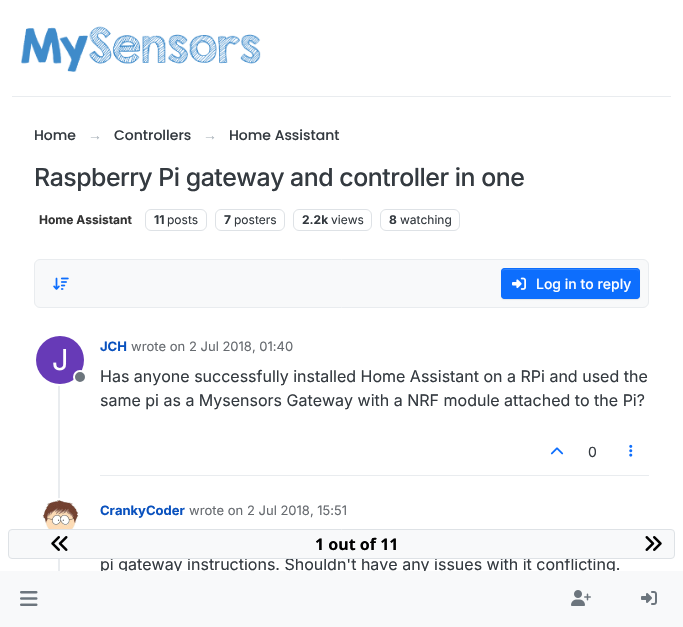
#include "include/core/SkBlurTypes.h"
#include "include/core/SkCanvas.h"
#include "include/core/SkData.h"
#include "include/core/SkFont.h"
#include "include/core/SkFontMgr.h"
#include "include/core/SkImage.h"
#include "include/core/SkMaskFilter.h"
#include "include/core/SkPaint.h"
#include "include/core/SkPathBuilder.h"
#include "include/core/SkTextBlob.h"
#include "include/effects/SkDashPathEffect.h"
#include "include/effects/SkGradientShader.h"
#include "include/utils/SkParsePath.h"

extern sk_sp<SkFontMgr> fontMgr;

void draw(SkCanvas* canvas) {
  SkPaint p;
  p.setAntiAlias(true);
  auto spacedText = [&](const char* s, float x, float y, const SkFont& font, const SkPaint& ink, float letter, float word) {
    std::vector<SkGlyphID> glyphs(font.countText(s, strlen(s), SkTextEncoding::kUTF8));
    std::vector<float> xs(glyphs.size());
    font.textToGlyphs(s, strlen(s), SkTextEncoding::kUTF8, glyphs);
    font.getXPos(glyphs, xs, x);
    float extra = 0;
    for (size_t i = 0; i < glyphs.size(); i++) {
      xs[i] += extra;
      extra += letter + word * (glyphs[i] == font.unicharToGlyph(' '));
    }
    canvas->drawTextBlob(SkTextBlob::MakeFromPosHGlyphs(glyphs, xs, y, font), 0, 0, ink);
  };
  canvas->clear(SK_ColorWHITE);
  p.setColor(SkColorSetRGB(233, 236, 239));
  canvas->drawRect(SkRect::MakeLTRB(12, 96, 671, 97), p);
  canvas->drawImageRect(SkImages::DeferredFromEncodedData(SkData::MakeFromFileName("images/1.png")), SkRect::MakeLTRB(21, 26, 261, 72), SkSamplingOptions());
  p.setStyle(SkPaint::kStroke_Style);
  p.setStrokeWidth(1);
  p.setColor(SkColorSetRGB(222, 226, 230));
  canvas->drawRoundRect(SkRect::MakeLTRB(145.5f, 209.5f, 206.5f, 230.5f), 5.5f, 5.5f, p);
  canvas->drawRoundRect(SkRect::MakeLTRB(215.5f, 209.5f, 284.5f, 230.5f), 5.5f, 5.5f, p);
  canvas->drawRoundRect(SkRect::MakeLTRB(293.5f, 209.5f, 371.5f, 230.5f), 5.5f, 5.5f, p);
  canvas->drawRoundRect(SkRect::MakeLTRB(380.5f, 209.5f, 459.5f, 230.5f), 5.5f, 5.5f, p);
  p.setStyle(SkPaint::kFill_Style);
  p.setColor(SkColorSetRGB(248, 249, 250));
  canvas->drawRoundRect(SkRect::MakeLTRB(34.5f, 259.5f, 648.5f, 307.5f), 5.5f, 5.5f, p);
  p.setStyle(SkPaint::kStroke_Style);
  p.setColor(SkColorSetRGB(233, 236, 239));
  canvas->drawRoundRect(SkRect::MakeLTRB(34.5f, 259.5f, 648.5f, 307.5f), 5.5f, 5.5f, p);
  canvas->drawImageRect(SkImages::DeferredFromEncodedData(SkData::MakeFromFileName("images/2.png")), SkRect::MakeLTRB(53, 277, 69, 290), SkSamplingOptions());
  p.setStyle(SkPaint::kFill_Style);
  p.setColor(SkColorSetARGB(18, 0, 0, 0));
  p.setMaskFilter(SkMaskFilter::MakeBlur(kNormal_SkBlurStyle, 0.5f));
  canvas->drawRoundRect(SkRect::MakeLTRB(501, 269, 640, 300), 4, 4, p);
  p.setMaskFilter(nullptr);
  p.setColor(SkColorSetRGB(13, 110, 253));
  canvas->drawRoundRect(SkRect::MakeLTRB(501, 268, 640, 299), 4, 4, p);
  p.setColor(SkColorSetRGB(49, 132, 253));
  canvas->drawPath(SkPathBuilder().moveTo(505, 270).lineTo(636, 270).cubicTo(638, 270, 639, 271, 639, 273).cubicTo(639, 271, 639, 269, 637, 269).lineTo(504, 269).cubicTo(502, 269, 502, 271, 502, 273).cubicTo(502, 271, 503, 270, 505, 270).close().detach(), p);
  p.setStyle(SkPaint::kStroke_Style);
  p.setColor(SkColorSetRGB(13, 110, 253));
  canvas->drawRoundRect(SkRect::MakeLTRB(501.5f, 268.5f, 639.5f, 298.5f), 3.5f, 3.5f, p);
  canvas->drawImageRect(SkImages::DeferredFromEncodedData(SkData::MakeFromFileName("images/3.png")), SkRect::MakeLTRB(512, 277, 526, 290), SkSamplingOptions());
  p.setStyle(SkPaint::kFill_Style);
  p.setColor(SkColorSetRGB(233, 236, 239));
  canvas->drawRect(SkRect::MakeLTRB(58, 336, 60, 571), p);
  p.setStyle(SkPaint::kStroke_Style);
  p.setStrokeWidth(2);
  p.setColor(SK_ColorWHITE);
  canvas->drawCircle(60, 360, 25, p);
  p.setStyle(SkPaint::kFill_Style);
  p.setColor(SkColorSetRGB(103, 58, 183));
  canvas->drawCircle(60, 360, 24, p);
  p.setColor(SkColorSetRGB(108, 117, 125));
  canvas->drawCircle(80, 377, 6, p);
  p.setStyle(SkPaint::kStroke_Style);
  p.setColor(SK_ColorWHITE);
  canvas->drawCircle(80, 377, 6, p);
  p.setStyle(SkPaint::kFill_Style);
  p.setColor(SkColorSetRGB(233, 236, 239));
  canvas->drawRect(SkRect::MakeLTRB(100, 475, 649, 476), p);
  canvas->drawImageRect(SkImages::DeferredFromEncodedData(SkData::MakeFromFileName("images/4.png")), SkRect::MakeLTRB(550, 447, 564, 455), SkSamplingOptions());
  canvas->drawImageRect(SkImages::DeferredFromEncodedData(SkData::MakeFromFileName("images/5.png")), SkRect::MakeLTRB(629, 444, 633, 457), SkSamplingOptions());
  p.setColor(SK_ColorWHITE);
  canvas->drawCircle(60, 524, 25, p);
  p.setStyle(SkPaint::kStroke_Style);
  canvas->drawCircle(60, 524, 25, p);
  canvas->drawImageRect(SkImages::DeferredFromEncodedData(SkData::MakeFromFileName("images/6.png")), SkRect::MakeLTRB(42, 500, 79, 529), SkSamplingOptions());
  SkFont font1(fontMgr->matchFamilyStyle("Poppins", SkFontStyle(500, SkFontStyle::kNormal_Width, SkFontStyle::kUpright_Slant)), 14);
  font1.setSubpixel(true);
  p.setStyle(SkPaint::kFill_Style);
  p.setColor(SkColorSetRGB(52, 58, 64));
  canvas->drawString("Home", 34, 140, font1, p);
  SkFont font2(fontMgr->matchFamilyStyle("Liberation Sans", SkFontStyle::Normal()), 14);
  font2.setSubpixel(true);
  p.setColor(SkColorSetRGB(173, 181, 189));
  canvas->drawString("→", 88, 140, font2, p);
  p.setColor(SkColorSetRGB(52, 58, 64));
  canvas->drawString("Controllers", 114, 140, font1, p);
  p.setColor(SkColorSetRGB(173, 181, 189));
  canvas->drawString("→", 203, 140, font2, p);
  p.setColor(SkColorSetRGB(52, 58, 64));
  canvas->drawString("Home Assistant", 229, 140, font1, p);
  SkFont font3(fontMgr->matchFamilyStyle("Inter", SkFontStyle(500, SkFontStyle::kNormal_Width, SkFontStyle::kUpright_Slant)), 24.9f);
  font3.setSubpixel(true);
  spacedText("Raspberry Pi gateway and controller in one", 34, 186, font3, p, -0.5f, 0);
  SkFont font4(fontMgr->matchFamilyStyle("Inter", SkFontStyle::Bold()), 12);
  font4.setSubpixel(true);
  p.setColor(SkColorSetRGB(51, 51, 51));
  canvas->drawString("Home Assistant", 39, 224, font4, p);
  p.setColor(SkColorSetRGB(52, 58, 64));
  canvas->drawString("11", 154, 224, font4, p);
  SkFont font5(fontMgr->matchFamilyStyle("Inter", SkFontStyle::Normal()), 12);
  font5.setSubpixel(true);
  canvas->drawString("posts", 167, 224, font5, p);
  canvas->drawString("7", 224, 224, font4, p);
  canvas->drawString("posters", 234, 224, font5, p);
  canvas->drawString("2.2k", 302, 224, font4, p);
  canvas->drawString("views", 331, 224, font5, p);
  canvas->drawString("8", 389, 224, font4, p);
  canvas->drawString("watching", 400, 224, font5, p);
  SkFont font6(fontMgr->matchFamilyStyle("Inter", SkFontStyle(500, SkFontStyle::kNormal_Width, SkFontStyle::kUpright_Slant)), 14);
  font6.setSubpixel(true);
  p.setColor(SK_ColorWHITE);
  canvas->drawString("Log in to reply", 536, 289, font6, p);
  SkFont font7(fontMgr->matchFamilyStyle("Inter", SkFontStyle::Normal()), 29);
  font7.setSubpixel(true);
  canvas->drawString("J", 52, 370, font7, p);
  SkFont font8(fontMgr->matchFamilyStyle("Inter", SkFontStyle::Bold()), 13);
  font8.setSubpixel(true);
  p.setColor(SkColorSetRGB(9, 81, 190));
  canvas->drawString("JCH", 100, 351, font8, p);
  SkFont font9(fontMgr->matchFamilyStyle("Inter", SkFontStyle::Normal()), 13);
  font9.setSubpixel(true);
  p.setColor(SkColorSetRGB(103, 107, 112));
  canvas->drawString("wrote on 2 Jul 2018, 01:40", 131, 351, font9, p);
  SkFont font10(fontMgr->matchFamilyStyle("Inter", SkFontStyle::Normal()), 16);
  font10.setSubpixel(true);
  p.setColor(SkColorSetRGB(52, 58, 64));
  canvas->drawString("Has anyone successfully installed Home Assistant on a RPi and used the", 100, 382, font10, p);
  canvas->drawString("same pi as a Mysensors Gateway with a NRF module attached to the Pi?", 100, 406, font10, p);
  SkFont font11(fontMgr->matchFamilyStyle("Inter", SkFontStyle::Normal()), 14);
  font11.setSubpixel(true);
  canvas->drawString("0", 588, 457, font11, p);
  p.setColor(SkColorSetRGB(9, 81, 190));
  canvas->drawString("CrankyCoder", 100, 515, font8, p);
  p.setColor(SkColorSetRGB(103, 107, 112));
  canvas->drawString("wrote on 2 Jul 2018, 15:51", 189, 515, font9, p);
  p.setColor(SkColorSetRGB(52, 58, 64));
  canvas->drawString("pi gateway instructions. Shouldn't have any issues with it conflicting.", 100, 570, font10, p);
  p.setColor(SkColorSetRGB(248, 249, 250));
  canvas->drawRoundRect(SkRect::MakeLTRB(8.5f, 529.5f, 674.5f, 558.5f), 3.5f, 3.5f, p);
  p.setStyle(SkPaint::kStroke_Style);
  p.setStrokeWidth(1);
  p.setColor(SkColorSetRGB(222, 226, 230));
  canvas->drawRoundRect(SkRect::MakeLTRB(8.5f, 529.5f, 674.5f, 558.5f), 3.5f, 3.5f, p);
  canvas->drawImageRect(SkImages::DeferredFromEncodedData(SkData::MakeFromFileName("images/7.png")), SkRect::MakeLTRB(51, 536, 68, 551), SkSamplingOptions());
  SkFont font12(fontMgr->matchFamilyStyle("Noto Sans", SkFontStyle::Bold()), 16);
  font12.setSubpixel(true);
  p.setStyle(SkPaint::kFill_Style);
  p.setColor(SK_ColorBLACK);
  canvas->drawString("1 out of 11", 315, 550, font12, p);
  canvas->drawImageRect(SkImages::DeferredFromEncodedData(SkData::MakeFromFileName("images/8.png")), SkRect::MakeLTRB(645, 536, 662, 551), SkSamplingOptions());
  p.setColor(SkColorSetRGB(248, 249, 250));
  canvas->drawRect(SkRect::MakeLTRB(0, 571, 683, 627), p);
  canvas->drawImageRect(SkImages::DeferredFromEncodedData(SkData::MakeFromFileName("images/9.png")), SkRect::MakeLTRB(20, 591, 38, 606), SkSamplingOptions());
  canvas->drawImageRect(SkImages::DeferredFromEncodedData(SkData::MakeFromFileName("images/10.png")), SkRect::MakeLTRB(571, 590, 591, 606), SkSamplingOptions());
  canvas->drawImageRect(SkImages::DeferredFromEncodedData(SkData::MakeFromFileName("images/11.png")), SkRect::MakeLTRB(641, 591, 657, 605), SkSamplingOptions());
}
